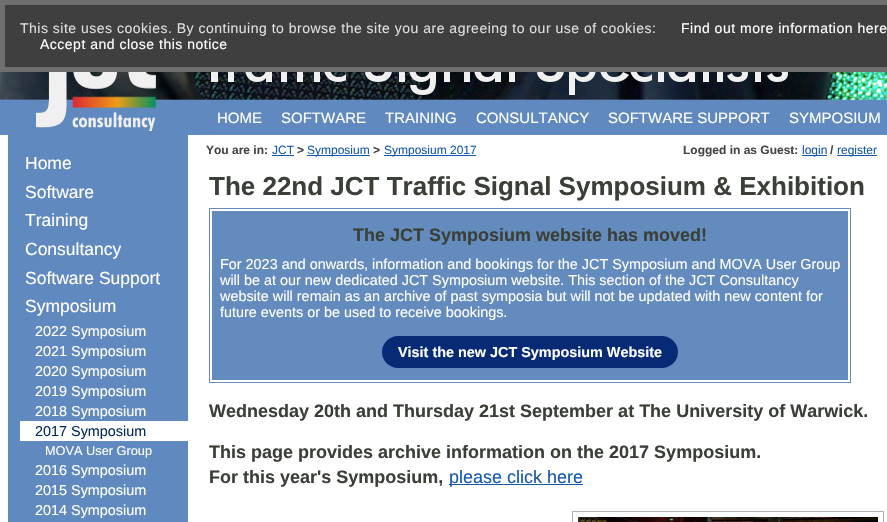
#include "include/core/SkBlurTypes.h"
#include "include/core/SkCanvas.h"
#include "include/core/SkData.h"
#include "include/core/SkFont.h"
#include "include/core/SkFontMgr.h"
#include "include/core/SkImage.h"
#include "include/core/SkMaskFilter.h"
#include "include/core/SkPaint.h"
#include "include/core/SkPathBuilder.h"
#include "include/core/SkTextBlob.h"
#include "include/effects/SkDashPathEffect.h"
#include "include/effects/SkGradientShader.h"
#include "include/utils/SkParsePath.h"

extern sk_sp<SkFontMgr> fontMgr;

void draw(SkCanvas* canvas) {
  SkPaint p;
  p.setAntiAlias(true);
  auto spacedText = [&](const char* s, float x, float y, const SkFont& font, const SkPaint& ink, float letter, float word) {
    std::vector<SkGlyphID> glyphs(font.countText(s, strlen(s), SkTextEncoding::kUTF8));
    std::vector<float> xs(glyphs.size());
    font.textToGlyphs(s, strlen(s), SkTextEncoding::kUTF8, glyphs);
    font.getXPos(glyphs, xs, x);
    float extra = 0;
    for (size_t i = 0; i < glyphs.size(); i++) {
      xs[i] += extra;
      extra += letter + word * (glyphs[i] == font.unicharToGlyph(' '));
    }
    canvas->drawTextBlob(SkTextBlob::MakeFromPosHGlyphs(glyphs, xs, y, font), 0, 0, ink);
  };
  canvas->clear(SK_ColorWHITE);
  p.setColor(SkColorSetRGB(63, 63, 63));
  canvas->drawRect(SkRect::MakeLTRB(2.5f, 2.5f, 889.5f, 69.5f), p);
  p.setStyle(SkPaint::kStroke_Style);
  p.setStrokeWidth(5);
  p.setColor(SkColorSetRGB(111, 111, 111));
  canvas->drawRect(SkRect::MakeLTRB(2.5f, 2.5f, 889.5f, 69.5f), p);
  canvas->drawImageRect(SkImages::DeferredFromEncodedData(SkData::MakeFromFileName("images/1.png")), SkRect::MakeLTRB(0, 72, 887, 135), SkSamplingOptions());
  p.setStyle(SkPaint::kFill_Style);
  p.setColor(SkColorSetRGB(96, 137, 191));
  canvas->drawRect(SkRect::MakeLTRB(8, 135, 188, 522), p);
  p.setColor(SK_ColorWHITE);
  canvas->drawRect(SkRect::MakeLTRB(20, 421, 188, 441), p);
  p.setColor(SkColorSetRGB(21, 88, 175));
  canvas->drawRect(SkRect::MakeLTRB(272, 155, 294, 156), p);
  canvas->drawRect(SkRect::MakeLTRB(307, 155, 370, 156), p);
  canvas->drawRect(SkRect::MakeLTRB(384, 155, 476, 156), p);
  canvas->drawRect(SkRect::MakeLTRB(802, 155, 827, 156), p);
  canvas->drawRect(SkRect::MakeLTRB(837, 155, 877, 156), p);
  p.setColor(SkColorSetRGB(100, 139, 189));
  canvas->drawRect(SkRect::MakeLTRB(209, 208, 851, 383), p);
  p.setStyle(SkPaint::kStroke_Style);
  p.setStrokeWidth(2);
  p.setColor(SK_ColorWHITE);
  canvas->drawRect(SkRect::MakeLTRB(211, 210, 849, 381), p);
  p.setStyle(SkPaint::kFill_Style);
  p.setColor(SkColorSetRGB(7, 42, 117));
  canvas->drawRoundRect(SkRect::MakeLTRB(382, 336, 678, 368), 16, 16, p);
  p.setColor(SkColorSetRGB(21, 88, 175));
  canvas->drawRect(SkRect::MakeLTRB(449, 484, 583, 485), p);
  p.setStyle(SkPaint::kStroke_Style);
  p.setStrokeWidth(1);
  p.setColor(SkColorSetRGB(176, 176, 176));
  canvas->drawRect(SkRect::MakeLTRB(572.5f, 511.5f, 883.5f, 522.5f), p);
  canvas->drawImageRect(SkImages::DeferredFromEncodedData(SkData::MakeFromFileName("images/2.png")), SkRect::MakeLTRB(578, 517, 878, 522), SkSamplingOptions());
  SkFont font1(fontMgr->matchFamilyStyle("Liberation Sans", SkFontStyle::Normal()), 14);
  font1.setSubpixel(true);
  p.setStyle(SkPaint::kFill_Style);
  p.setColor(SkColorSetRGB(223, 223, 223));
  spacedText("This site uses cookies. By continuing to browse the site you are agreeing to our use of cookies:", 20, 33, font1, p, 0.5f, 0);
  p.setColor(SK_ColorWHITE);
  spacedText("Find out more information here", 681, 33, font1, p, 0.5f, 0);
  spacedText("Accept and close this notice", 40, 49, font1, p, 0.5f, 0);
  SkFont font2(fontMgr->matchFamilyStyle("Liberation Sans", SkFontStyle::Normal()), 15);
  font2.setSubpixel(true);
  canvas->drawString("HOME", 217, 123, font2, p);
  canvas->drawString("SOFTWARE", 281, 123, font2, p);
  canvas->drawString("TRAINING", 385, 123, font2, p);
  canvas->drawString("CONSULTANCY", 476, 123, font2, p);
  canvas->drawString("SOFTWARE SUPPORT", 608, 123, font2, p);
  canvas->drawString("SYMPOSIUM", 789, 123, font2, p);
  SkFont font3(fontMgr->matchFamilyStyle("Liberation Sans", SkFontStyle::Normal()), 17.5f);
  font3.setSubpixel(true);
  canvas->drawString("Home", 25, 169, font3, p);
  canvas->drawString("Software", 25, 198, font3, p);
  canvas->drawString("Training", 25, 226, font3, p);
  canvas->drawString("Consultancy", 25, 255, font3, p);
  canvas->drawString("Software Support", 25, 284, font3, p);
  canvas->drawString("Symposium", 25, 312, font3, p);
  SkFont font4(fontMgr->matchFamilyStyle("Liberation Sans", SkFontStyle::Normal()), 14.4f);
  font4.setSubpixel(true);
  canvas->drawString("2022 Symposium", 35, 336, font4, p);
  canvas->drawString("2021 Symposium", 35, 356, font4, p);
  canvas->drawString("2020 Symposium", 35, 376, font4, p);
  canvas->drawString("2019 Symposium", 35, 396, font4, p);
  canvas->drawString("2018 Symposium", 35, 416, font4, p);
  p.setColor(SkColorSetRGB(6, 44, 95));
  canvas->drawString("2017 Symposium", 35, 436, font4, p);
  SkFont font5(fontMgr->matchFamilyStyle("Liberation Sans", SkFontStyle::Normal()), 12.75f);
  font5.setSubpixel(true);
  p.setColor(SK_ColorWHITE);
  canvas->drawString("MOVA User Group", 45, 455, font5, p);
  canvas->drawString("2016 Symposium", 35, 475, font4, p);
  canvas->drawString("2015 Symposium", 35, 495, font4, p);
  canvas->drawString("2014 Symposium", 35, 515, font4, p);
  SkFont font6(fontMgr->matchFamilyStyle("Liberation Sans", SkFontStyle::Bold()), 12);
  font6.setSubpixel(true);
  p.setColor(SkColorSetRGB(68, 68, 68));
  canvas->drawString("You are in:", 206, 154, font6, p);
  SkFont font7(fontMgr->matchFamilyStyle("Liberation Sans", SkFontStyle::Normal()), 12);
  font7.setSubpixel(true);
  p.setColor(SkColorSetRGB(21, 88, 175));
  canvas->drawString("JCT", 272, 154, font7, p);
  p.setColor(SkColorSetRGB(68, 68, 68));
  canvas->drawString(">", 297, 154, font6, p);
  p.setColor(SkColorSetRGB(21, 88, 175));
  canvas->drawString("Symposium", 307, 154, font7, p);
  p.setColor(SkColorSetRGB(68, 68, 68));
  canvas->drawString(">", 373, 154, font6, p);
  p.setColor(SkColorSetRGB(21, 88, 175));
  canvas->drawString("Symposium 2017", 384, 154, font7, p);
  p.setColor(SkColorSetRGB(68, 68, 68));
  canvas->drawString("Logged in as Guest:", 683, 154, font6, p);
  p.setColor(SkColorSetRGB(21, 88, 175));
  canvas->drawString("login", 802, 154, font7, p);
  p.setColor(SkColorSetRGB(68, 68, 68));
  canvas->drawString("/", 830, 154, font6, p);
  p.setColor(SkColorSetRGB(21, 88, 175));
  canvas->drawString("register", 837, 154, font7, p);
  SkFont font8(fontMgr->matchFamilyStyle("Liberation Sans", SkFontStyle::Bold()), 26);
  font8.setSubpixel(true);
  p.setColor(SkColorSetRGB(58, 63, 55));
  canvas->drawString("The 22nd JCT Traffic Signal Symposium & Exhibition", 209, 195, font8, p);
  SkFont font9(fontMgr->matchFamilyStyle("Liberation Sans", SkFontStyle::Bold()), 18);
  font9.setSubpixel(true);
  canvas->drawString("The JCT Symposium website has moved!", 353, 241, font9, p);
  p.setColor(SK_ColorWHITE);
  canvas->drawString("For 2023 and onwards, information and bookings for the JCT Symposium and MOVA User Group", 220, 269, font4, p);
  canvas->drawString("will be at our new dedicated JCT Symposium website. This section of the JCT Consultancy", 220, 285, font4, p);
  canvas->drawString("website will remain as an archive of past symposia but will not be updated with new content for", 220, 301, font4, p);
  canvas->drawString("future events or be used to receive bookings.", 220, 317, font4, p);
  SkFont font10(fontMgr->matchFamilyStyle("Liberation Sans", SkFontStyle::Bold()), 14.4f);
  font10.setSubpixel(true);
  canvas->drawString("Visit the new JCT Symposium Website", 398, 357, font10, p);
  p.setColor(SkColorSetRGB(58, 63, 55));
  canvas->drawString("Wednesday 20th and Thursday 21st September at The University of Warwick.", 209, 417, font9, p);
  canvas->drawString("This page provides archive information on the 2017 Symposium.", 209, 458, font9, p);
  canvas->drawString("For this year's Symposium,", 209, 483, font9, p);
  SkFont font11(fontMgr->matchFamilyStyle("Liberation Sans", SkFontStyle::Normal()), 18);
  font11.setSubpixel(true);
  p.setColor(SkColorSetRGB(21, 88, 175));
  canvas->drawString("please click here", 449, 483, font11, p);
}
